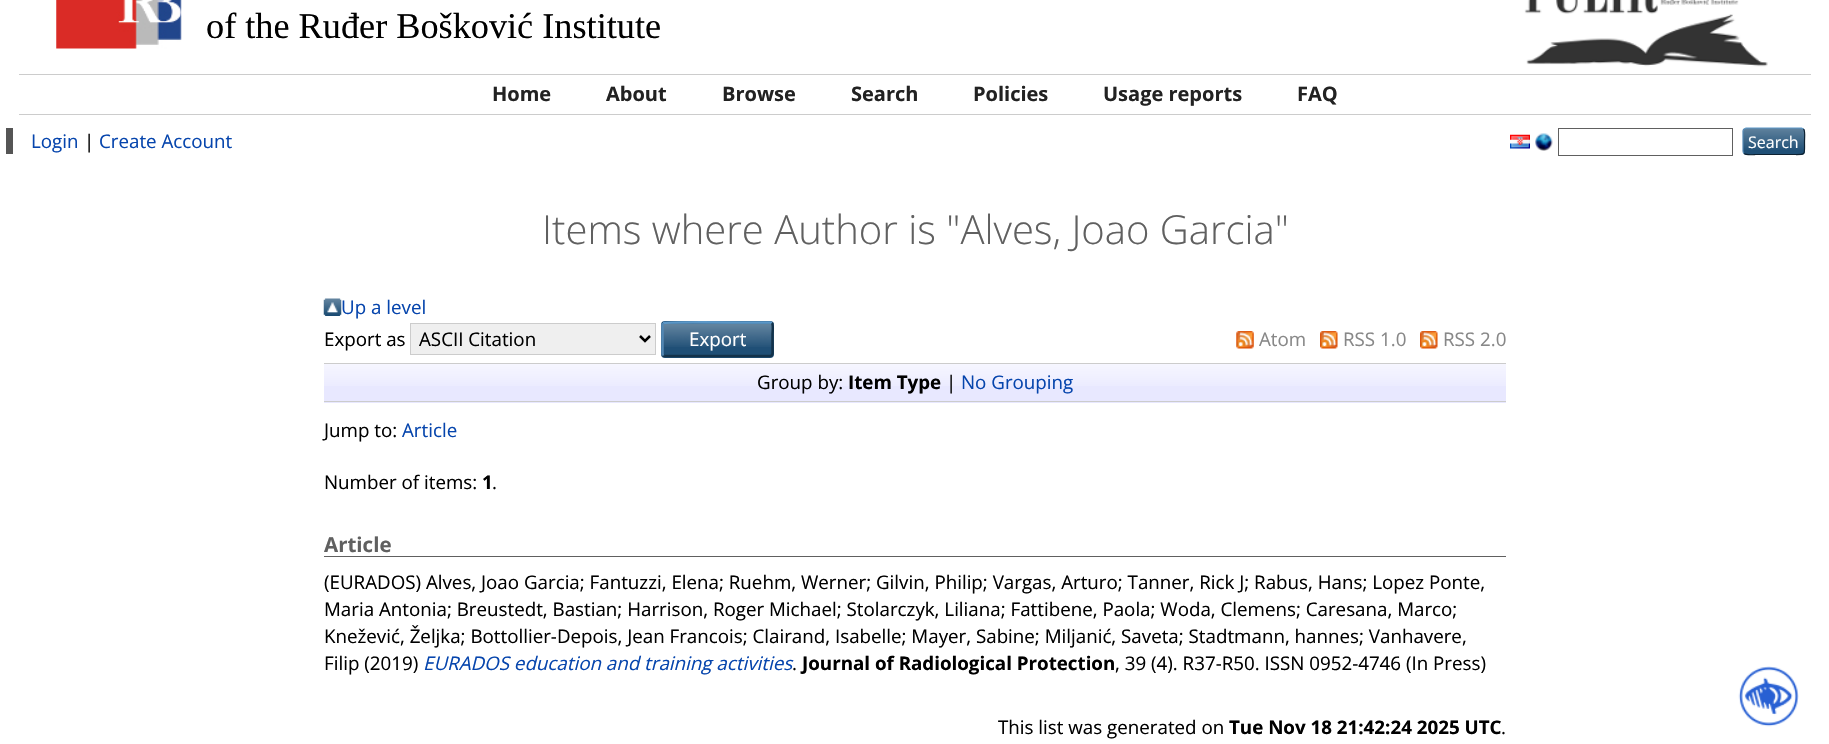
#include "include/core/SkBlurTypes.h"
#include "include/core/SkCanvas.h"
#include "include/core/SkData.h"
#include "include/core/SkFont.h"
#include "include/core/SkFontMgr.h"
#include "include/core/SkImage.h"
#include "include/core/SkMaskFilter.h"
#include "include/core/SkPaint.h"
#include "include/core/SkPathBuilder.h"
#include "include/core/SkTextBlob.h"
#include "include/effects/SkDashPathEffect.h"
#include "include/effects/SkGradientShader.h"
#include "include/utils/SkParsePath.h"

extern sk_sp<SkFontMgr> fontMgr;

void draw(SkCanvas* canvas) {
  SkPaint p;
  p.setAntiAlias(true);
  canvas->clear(SK_ColorWHITE);
  canvas->drawImageRect(SkImages::DeferredFromEncodedData(SkData::MakeFromFileName("images/1.png")), SkRect::MakeLTRB(56, 0, 182, 49), SkSamplingOptions());
  canvas->drawImageRect(SkImages::DeferredFromEncodedData(SkData::MakeFromFileName("images/2.png")), SkRect::MakeLTRB(1524, 0, 1768, 67), SkSamplingOptions());
  p.setColor(SkColorSetRGB(204, 204, 204));
  canvas->drawRect(SkRect::MakeLTRB(19, 74, 1811, 75), p);
  canvas->drawRect(SkRect::MakeLTRB(19, 114, 1811, 115), p);
  p.setColor(SkColorSetRGB(85, 85, 85));
  canvas->drawRect(SkRect::MakeLTRB(6, 128, 13, 154), p);
  canvas->drawImageRect(SkImages::DeferredFromEncodedData(SkData::MakeFromFileName("images/3.png")), SkRect::MakeLTRB(1510, 134, 1530, 149), SkSamplingOptions());
  canvas->drawImageRect(SkImages::DeferredFromEncodedData(SkData::MakeFromFileName("images/4.png")), SkRect::MakeLTRB(1535, 133, 1553, 151), SkSamplingOptions());
  p.setStyle(SkPaint::kStroke_Style);
  p.setStrokeWidth(1);
  p.setColor(SkColorSetRGB(96, 96, 96));
  canvas->drawRect(SkRect::MakeLTRB(1558.5f, 128.5f, 1732.5f, 155.5f), p);
  p.setStyle(SkPaint::kFill_Style);
  p.setColor(SkColorSetRGB(31, 79, 118));
  canvas->drawRoundRect(SkRect::MakeLTRB(1743, 128, 1805, 155), 4, 4, p);
  canvas->drawImageRect(SkImages::DeferredFromEncodedData(SkData::MakeFromFileName("images/5.png")), SkRect::MakeLTRB(1743, 128, 1805, 150), SkSamplingOptions());
  p.setStyle(SkPaint::kStroke_Style);
  p.setStrokeWidth(1.2f);
  p.setColor(SkColorSetRGB(91, 151, 199));
  canvas->drawPath(SkPathBuilder().moveTo(1744, 129).lineTo(1746, 128).lineTo(1801.5f, 128).lineTo(1803.5f, 129).detach(), p);
  p.setColor(SkColorSetRGB(13, 33, 49));
  canvas->drawPath(SkPathBuilder().moveTo(1803.5f, 129).cubicTo(1805.5f, 131, 1804.5f, 138.5f, 1804.5f, 141).cubicTo(1804.5f, 156, 1806.5f, 154.5f, 1792, 154.5f).lineTo(1755.5f, 154.5f).cubicTo(1754.5f, 154.5f, 1746.5f, 155.5f, 1744, 153.5f).detach(), p);
  p.setColor(SkColorSetRGB(82, 135, 179));
  canvas->drawPath(SkPathBuilder().moveTo(1744, 153.5f).cubicTo(1743.5f, 153, 1743, 152, 1743, 151).lineTo(1743, 131).cubicTo(1743, 130.5f, 1743.5f, 129.5f, 1744, 129).detach(), p);
  canvas->drawImageRect(SkImages::DeferredFromEncodedData(SkData::MakeFromFileName("images/6.png")), SkRect::MakeLTRB(323, 298, 342, 316), SkSamplingOptions());
  p.setStyle(SkPaint::kFill_Style);
  p.setColor(SkColorSetRGB(239, 239, 239));
  canvas->drawRect(SkRect::MakeLTRB(410.5f, 323.5f, 655.5f, 354.5f), p);
  p.setStyle(SkPaint::kStroke_Style);
  p.setStrokeWidth(1);
  p.setColor(SkColorSetRGB(204, 204, 204));
  canvas->drawRect(SkRect::MakeLTRB(410.5f, 323.5f, 655.5f, 354.5f), p);
  p.setStrokeWidth(2.5f);
  p.setColor(SK_ColorBLACK);
  canvas->drawPath(SkPathBuilder().moveTo(640, 336).lineTo(645, 341).lineTo(650, 336).detach(), p);
  p.setStyle(SkPaint::kFill_Style);
  p.setColor(SkColorSetRGB(31, 79, 118));
  canvas->drawRoundRect(SkRect::MakeLTRB(661, 321, 774, 358), 4, 4, p);
  canvas->drawImageRect(SkImages::DeferredFromEncodedData(SkData::MakeFromFileName("images/7.png")), SkRect::MakeLTRB(661, 323, 774, 347), SkSamplingOptions());
  p.setStyle(SkPaint::kStroke_Style);
  p.setColor(SkColorSetRGB(91, 151, 199));
  canvas->drawPath(SkPathBuilder().moveTo(663, 323).lineTo(663.5f, 323).cubicTo(665.5f, 321.5f, 743.5f, 322.5f, 752.5f, 322.5f).lineTo(770, 322.5f).lineTo(772, 323).detach(), p);
  p.setColor(SkColorSetRGB(19, 50, 74));
  canvas->drawPath(SkPathBuilder().moveTo(772, 323).cubicTo(773.5f, 325, 772.5f, 332.5f, 772.5f, 334.5f).lineTo(772.5f, 349).cubicTo(772.5f, 350.5f, 773.5f, 356, 770, 356).lineTo(665, 356).lineTo(663, 355.5f).detach(), p);
  p.setColor(SkColorSetRGB(82, 135, 179));
  canvas->drawPath(SkPathBuilder().moveTo(663, 355.5f).cubicTo(663, 355, 662.5f, 354.5f, 662.5f, 354).lineTo(662.5f, 325).cubicTo(662.5f, 324.5f, 663, 323.5f, 663, 323).detach(), p);
  canvas->drawImageRect(SkImages::DeferredFromEncodedData(SkData::MakeFromFileName("images/8.png")), SkRect::MakeLTRB(1236, 331, 1254, 349), SkSamplingOptions());
  canvas->drawImageRect(SkImages::DeferredFromEncodedData(SkData::MakeFromFileName("images/9.png")), SkRect::MakeLTRB(1320, 331, 1338, 349), SkSamplingOptions());
  canvas->drawImageRect(SkImages::DeferredFromEncodedData(SkData::MakeFromFileName("images/9.png")), SkRect::MakeLTRB(1420, 331, 1438, 349), SkSamplingOptions());
  p.setStyle(SkPaint::kFill_Style);
  p.setColor(SkColorSetRGB(232, 232, 255));
  canvas->drawRect(SkRect::MakeLTRB(324, 364, 1506, 403), p);
  canvas->drawImageRect(SkImages::DeferredFromEncodedData(SkData::MakeFromFileName("images/10.png")), SkRect::MakeLTRB(324, 364, 1506, 386), SkSamplingOptions());
  p.setColor(SkColorSetRGB(204, 204, 204));
  canvas->drawRect(SkRect::MakeLTRB(324, 363, 1506, 364), p);
  canvas->drawRect(SkRect::MakeLTRB(324, 401, 1506, 402), p);
  p.setColor(SkColorSetRGB(96, 96, 96));
  canvas->drawRect(SkRect::MakeLTRB(324, 556, 1506, 557), p);
  canvas->drawImageRect(SkImages::DeferredFromEncodedData(SkData::MakeFromFileName("images/11.png")), SkRect::MakeLTRB(1738, 666, 1799, 727), SkSamplingOptions());
  SkFont font1(fontMgr->matchFamilyStyle("Liberation Serif", SkFontStyle::Normal()), 36.25f);
  font1.setSubpixel(true);
  p.setColor(SK_ColorBLACK);
  canvas->drawString("of the Ruđer Bošković Institute", 206, 38, font1, p);
  SkFont font2(fontMgr->matchFamilyStyle("Open Sans", SkFontStyle::Bold()), 20);
  font2.setSubpixel(true);
  p.setColor(SkColorSetRGB(34, 34, 34));
  canvas->drawString("Home", 492, 101, font2, p);
  canvas->drawString("About", 606, 101, font2, p);
  canvas->drawString("Browse", 722, 101, font2, p);
  canvas->drawString("Search", 851, 101, font2, p);
  canvas->drawString("Policies", 973, 101, font2, p);
  canvas->drawString("Usage reports", 1103, 101, font2, p);
  canvas->drawString("FAQ", 1297, 101, font2, p);
  SkFont font3(fontMgr->matchFamilyStyle("Open Sans", SkFontStyle::Normal()), 18.75f);
  font3.setSubpixel(true);
  p.setColor(SkColorSetRGB(6, 69, 173));
  canvas->drawString("Login", 31, 148, font3, p);
  p.setColor(SK_ColorBLACK);
  canvas->drawString("|", 84, 148, font3, p);
  p.setColor(SkColorSetRGB(6, 69, 173));
  canvas->drawString("Create Account", 99, 148, font3, p);
  SkFont font4(fontMgr->matchFamilyStyle("Open Sans", SkFontStyle::Normal()), 16);
  font4.setSubpixel(true);
  p.setColor(SK_ColorWHITE);
  canvas->drawString("Search", 1748, 148, font4, p);
  SkFont font5(fontMgr->matchFamilyStyle("Open Sans", SkFontStyle(300, SkFontStyle::kNormal_Width, SkFontStyle::kUpright_Slant)), 40);
  font5.setSubpixel(true);
  p.setColor(SkColorSetRGB(96, 96, 96));
  canvas->drawString("Items where Author is \"Alves, Joao Garcia\"", 542, 244, font5, p);
  p.setColor(SkColorSetRGB(6, 69, 173));
  canvas->drawString("Up a level", 341, 314, font3, p);
  p.setColor(SK_ColorBLACK);
  canvas->drawString("Export as", 324, 346, font3, p);
  canvas->drawString("ASCII Citation", 419, 346, font3, p);
  p.setColor(SK_ColorWHITE);
  canvas->drawString("Export", 689, 346, font3, p);
  p.setColor(SkColorSetRGB(136, 136, 136));
  canvas->drawString("Atom", 1259, 346, font3, p);
  canvas->drawString("RSS 1.0", 1343, 346, font3, p);
  canvas->drawString("RSS 2.0", 1443, 346, font3, p);
  p.setColor(SK_ColorBLACK);
  canvas->drawString("Group by:", 757, 389, font3, p);
  SkFont font6(fontMgr->matchFamilyStyle("Open Sans", SkFontStyle::Bold()), 18.75f);
  font6.setSubpixel(true);
  canvas->drawString("Item Type", 848, 389, font6, p);
  canvas->drawString("|", 946, 389, font3, p);
  p.setColor(SkColorSetRGB(6, 69, 173));
  canvas->drawString("No Grouping", 961, 389, font3, p);
  p.setColor(SK_ColorBLACK);
  canvas->drawString("Jump to:", 324, 437, font3, p);
  p.setColor(SkColorSetRGB(6, 69, 173));
  canvas->drawString("Article", 402, 437, font3, p);
  p.setColor(SK_ColorBLACK);
  canvas->drawString("Number of items:", 324, 489, font3, p);
  canvas->drawString("1", 482, 489, font6, p);
  canvas->drawString(".", 492, 489, font3, p);
  SkFont font7(fontMgr->matchFamilyStyle("Open Sans", SkFontStyle::Bold()), 20.5f);
  font7.setSubpixel(true);
  p.setColor(SkColorSetRGB(96, 96, 96));
  canvas->drawString("Article", 324, 552, font7, p);
  p.setColor(SK_ColorBLACK);
  canvas->drawString("(EURADOS) Alves, Joao Garcia; Fantuzzi, Elena; Ruehm, Werner; Gilvin, Philip; Vargas, Arturo; Tanner, Rick J; Rabus, Hans; Lopez Ponte,", 324, 589, font3, p);
  canvas->drawString("Maria Antonia; Breustedt, Bastian; Harrison, Roger Michael; Stolarczyk, Liliana; Fattibene, Paola; Woda, Clemens; Caresana, Marco;", 324, 616, font3, p);
  canvas->drawString("Knežević, Željka; Bottollier-Depois, Jean Francois; Clairand, Isabelle; Mayer, Sabine; Miljanić, Saveta; Stadtmann, hannes; Vanhavere,", 324, 643, font3, p);
  canvas->drawString("Filip (2019)", 324, 670, font3, p);
  SkFont font8(fontMgr->matchFamilyStyle("Open Sans", SkFontStyle::Italic()), 18.75f);
  font8.setSubpixel(true);
  p.setColor(SkColorSetRGB(6, 69, 173));
  canvas->drawString("EURADOS education and training activities", 423, 670, font8, p);
  p.setColor(SK_ColorBLACK);
  canvas->drawString(".", 792, 670, font3, p);
  canvas->drawString("Journal of Radiological Protection", 802, 670, font6, p);
  canvas->drawString(", 39 (4). R37-R50. ISSN 0952-4746 (In Press)", 1115, 670, font3, p);
  canvas->drawString("This list was generated on", 998, 734, font3, p);
  canvas->drawString("Tue Nov 18 21:42:24 2025 UTC", 1229, 734, font6, p);
  canvas->drawString(".", 1501, 734, font3, p);
}
